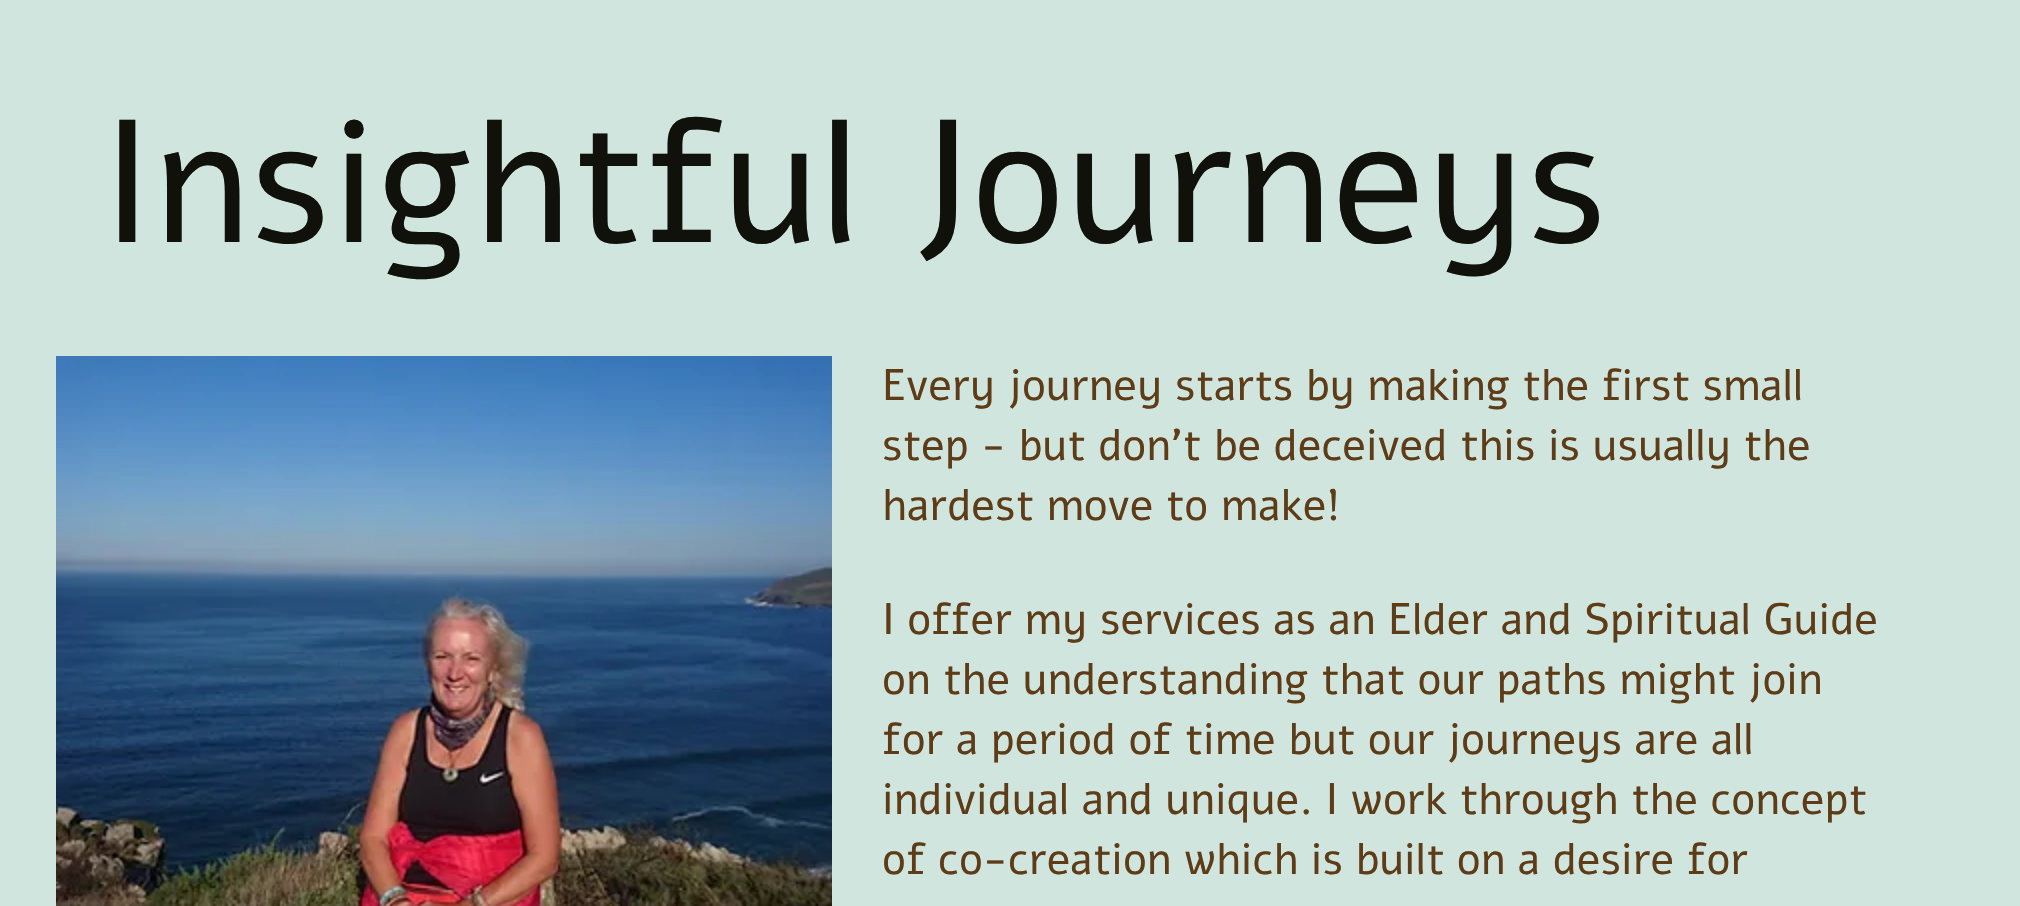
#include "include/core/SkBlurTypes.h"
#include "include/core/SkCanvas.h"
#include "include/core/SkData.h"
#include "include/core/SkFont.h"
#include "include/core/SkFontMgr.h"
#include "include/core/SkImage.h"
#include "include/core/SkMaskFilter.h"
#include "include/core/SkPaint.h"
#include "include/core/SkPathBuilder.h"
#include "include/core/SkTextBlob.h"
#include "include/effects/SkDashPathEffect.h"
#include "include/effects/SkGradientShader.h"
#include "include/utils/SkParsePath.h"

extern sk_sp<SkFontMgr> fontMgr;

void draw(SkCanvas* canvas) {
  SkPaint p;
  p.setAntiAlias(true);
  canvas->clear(SkColorSetRGB(208, 229, 222));
  canvas->drawImageRect(SkImages::DeferredFromEncodedData(SkData::MakeFromFileName("images/1.png")), SkRect::MakeLTRB(56, 356, 832, 906), SkSamplingOptions());
  SkFont font1(fontMgr->matchFamilyStyle("Alef", SkFontStyle::Normal()), 174);
  font1.setSubpixel(true);
  p.setColor(SkColorSetRGB(16, 17, 11));
  canvas->drawString("Insightful Journeys", 102, 242, font1, p);
  SkFont font2(fontMgr->matchFamilyStyle("Alef", SkFontStyle::Normal()), 44);
  font2.setSubpixel(true);
  p.setColor(SkColorSetRGB(94, 60, 23));
  canvas->drawString("Every journey starts by making the first small", 882, 400, font2, p);
  canvas->drawString("step - but don't be deceived this is usually the", 882, 460, font2, p);
  canvas->drawString("hardest move to make!", 882, 520, font2, p);
  canvas->drawString("I offer my services as an Elder and Spiritual Guide", 882, 634, font2, p);
  canvas->drawString("on the understanding that our paths might join", 882, 694, font2, p);
  canvas->drawString("for a period of time but our journeys are all", 882, 754, font2, p);
  canvas->drawString("individual and unique. I work through the concept", 882, 814, font2, p);
  canvas->drawString("of co-creation which is built on a desire for", 882, 874, font2, p);
}
